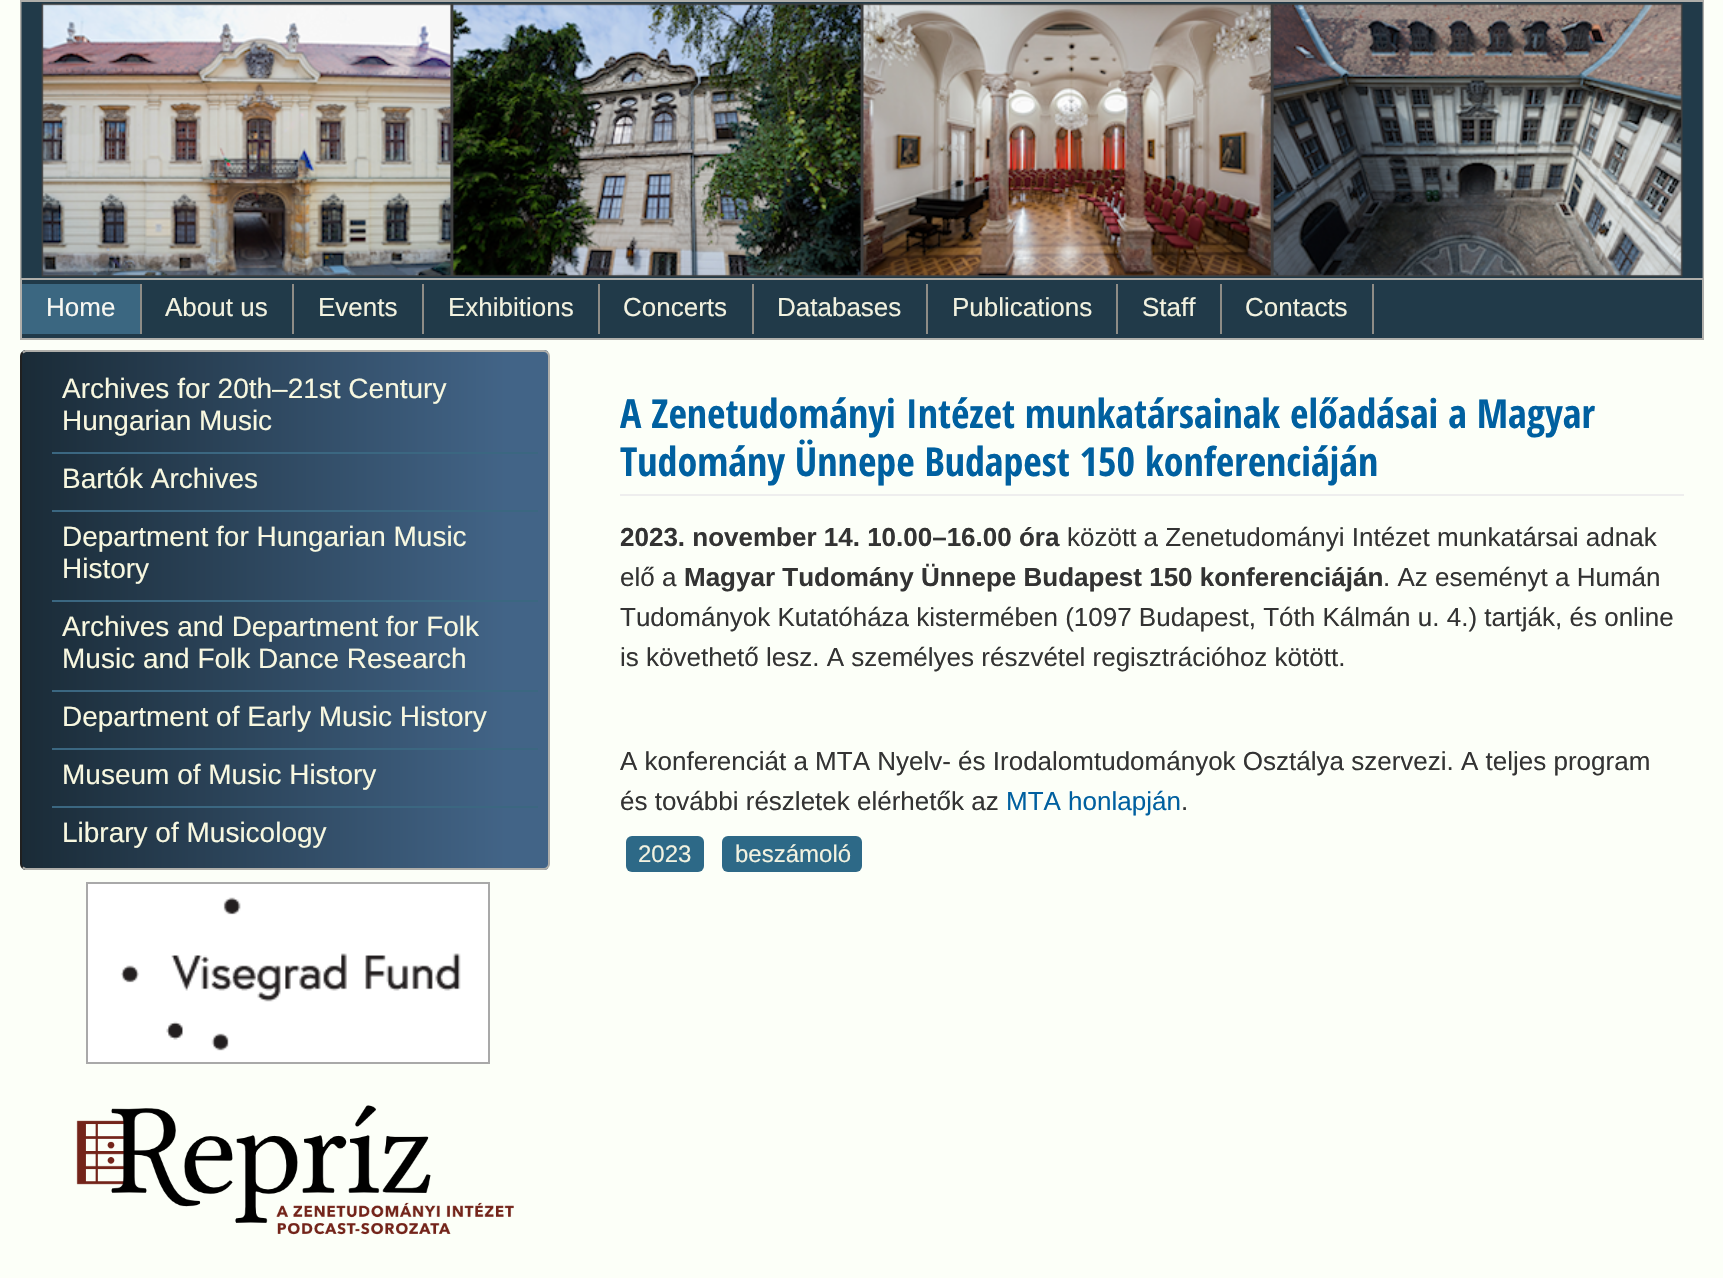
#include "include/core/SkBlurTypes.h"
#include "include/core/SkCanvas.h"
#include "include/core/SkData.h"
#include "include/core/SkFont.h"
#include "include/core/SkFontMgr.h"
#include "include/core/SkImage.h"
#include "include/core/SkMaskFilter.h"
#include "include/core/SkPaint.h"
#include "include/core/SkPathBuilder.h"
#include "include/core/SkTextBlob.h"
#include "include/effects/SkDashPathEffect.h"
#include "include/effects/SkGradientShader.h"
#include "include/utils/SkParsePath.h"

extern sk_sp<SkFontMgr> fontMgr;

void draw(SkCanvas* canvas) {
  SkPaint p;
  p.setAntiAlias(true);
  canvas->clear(SkColorSetRGB(252, 255, 248));
  p.setStyle(SkPaint::kStroke_Style);
  p.setStrokeWidth(2);
  p.setColor(SkColorSetRGB(175, 174, 170));
  canvas->drawRect(SkRect::MakeLTRB(21, -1, 1703, 1), p);
  canvas->drawImageRect(SkImages::DeferredFromEncodedData(SkData::MakeFromFileName("images/1.png")), SkRect::MakeLTRB(20, 2, 1704, 278), SkSamplingOptions());
  p.setStyle(SkPaint::kFill_Style);
  p.setColor(SkColorSetRGB(33, 58, 73));
  canvas->drawRect(SkRect::MakeLTRB(21, 279, 1703, 339), p);
  p.setStyle(SkPaint::kStroke_Style);
  p.setColor(SkColorSetRGB(175, 174, 170));
  canvas->drawRect(SkRect::MakeLTRB(21, 279, 1703, 339), p);
  p.setStyle(SkPaint::kFill_Style);
  p.setColor(SkColorSetRGB(59, 103, 129));
  canvas->drawRect(SkRect::MakeLTRB(22, 284, 140, 334), p);
  p.setColor(SkColorSetRGB(142, 140, 134));
  canvas->drawRect(SkRect::MakeLTRB(140, 284, 142, 334), p);
  canvas->drawRect(SkRect::MakeLTRB(292, 284, 294, 334), p);
  canvas->drawRect(SkRect::MakeLTRB(422, 284, 424, 334), p);
  canvas->drawRect(SkRect::MakeLTRB(598, 284, 600, 334), p);
  canvas->drawRect(SkRect::MakeLTRB(752, 284, 754, 334), p);
  canvas->drawRect(SkRect::MakeLTRB(926, 284, 928, 334), p);
  canvas->drawRect(SkRect::MakeLTRB(1116, 284, 1118, 334), p);
  canvas->drawRect(SkRect::MakeLTRB(1220, 284, 1222, 334), p);
  canvas->drawRect(SkRect::MakeLTRB(1372, 284, 1374, 334), p);
  canvas->save();
  canvas->clipPath(SkPathBuilder().moveTo(26, 350).lineTo(544, 350).cubicTo(547.5f, 350, 550, 352.5f, 550, 356).lineTo(550, 864).cubicTo(550, 867.5f, 547.5f, 870, 544, 870).lineTo(26, 870).cubicTo(22.5f, 870, 20, 867.5f, 20, 864).lineTo(20, 356).cubicTo(20, 352.5f, 22.5f, 350, 26, 350).close().detach(), true);
  {
    const SkColor colors[] = {SkColorSetRGB(66, 100, 135), SkColorSetRGB(26, 43, 55)};
    const float stops[] = {0.08f, 1};
    const SkPoint ends[] = {{548, 610}, {22, 610}};
    p.setShader(SkGradientShader::MakeLinear(ends, colors, stops, 2, SkTileMode::kClamp));
    p.setAlpha(255);
  }
  canvas->drawRect(SkRect::MakeLTRB(22, 350, 548, 870), p);
  canvas->restore();
  p.setStyle(SkPaint::kStroke_Style);
  p.setShader(nullptr);
  p.setColor(SkColorSetRGB(175, 174, 170));
  canvas->drawPath(SkPathBuilder().moveTo(22.5f, 352.5f).lineTo(25.5f, 351).lineTo(544, 351).cubicTo(546.5f, 351, 549, 353.5f, 549, 356).lineTo(549, 864).cubicTo(549, 866.5f, 546.5f, 869, 544, 869).lineTo(25.5f, 869).lineTo(22.5f, 867.5f).detach(), p);
  p.setColor(SkColorSetRGB(32, 32, 32));
  canvas->drawPath(SkPathBuilder().moveTo(22.5f, 867.5f).cubicTo(21.5f, 866.5f, 21, 865.5f, 21, 864).lineTo(21, 356).cubicTo(21, 354.5f, 21.5f, 353.5f, 22.5f, 352.5f).detach(), p);
  p.setStyle(SkPaint::kFill_Style);
  p.setColor(SkColorSetRGB(59, 103, 129));
  canvas->drawRect(SkRect::MakeLTRB(52, 452, 538, 454), p);
  canvas->drawRect(SkRect::MakeLTRB(52, 510, 538, 512), p);
  canvas->drawRect(SkRect::MakeLTRB(52, 600, 538, 602), p);
  canvas->drawRect(SkRect::MakeLTRB(52, 690, 538, 692), p);
  canvas->drawRect(SkRect::MakeLTRB(52, 748, 538, 750), p);
  canvas->drawRect(SkRect::MakeLTRB(52, 806, 538, 808), p);
  p.setStyle(SkPaint::kStroke_Style);
  p.setColor(SkColorSetRGB(169, 169, 169));
  canvas->drawRect(SkRect::MakeLTRB(87, 883, 489, 1063), p);
  canvas->drawImageRect(SkImages::DeferredFromEncodedData(SkData::MakeFromFileName("images/2.png")), SkRect::MakeLTRB(88, 884, 488, 1062), SkSamplingOptions());
  canvas->drawImageRect(SkImages::DeferredFromEncodedData(SkData::MakeFromFileName("images/3.png")), SkRect::MakeLTRB(76, 1105, 514, 1235), SkSamplingOptions());
  p.setStyle(SkPaint::kFill_Style);
  p.setColor(SkColorSetRGB(238, 238, 238));
  canvas->drawRect(SkRect::MakeLTRB(620, 494, 1684, 496), p);
  p.setColor(SkColorSetRGB(45, 105, 135));
  canvas->drawRoundRect(SkRect::MakeLTRB(626, 836, 704, 872), 6, 6, p);
  canvas->drawRoundRect(SkRect::MakeLTRB(722, 836, 862, 872), 6, 6, p);
  SkFont font1(fontMgr->matchFamilyStyle("Liberation Sans", SkFontStyle::Normal()), 26);
  font1.setSubpixel(true);
  p.setColor(SkColorSetRGB(248, 248, 242));
  canvas->drawString("Home", 46, 316, font1, p);
  p.setColor(SkColorSetRGB(242, 242, 224));
  canvas->drawString("About us", 165, 316, font1, p);
  canvas->drawString("Events", 318, 316, font1, p);
  canvas->drawString("Exhibitions", 448, 316, font1, p);
  canvas->drawString("Concerts", 623, 316, font1, p);
  canvas->drawString("Databases", 777, 316, font1, p);
  canvas->drawString("Publications", 952, 316, font1, p);
  canvas->drawString("Staff", 1142, 316, font1, p);
  canvas->drawString("Contacts", 1245, 316, font1, p);
  SkFont font2(fontMgr->matchFamilyStyle("Liberation Sans", SkFontStyle::Normal()), 28);
  font2.setSubpixel(true);
  p.setColor(SkColorSetRGB(248, 248, 224));
  canvas->drawString("Archives for 20th–21st Century", 62, 398, font2, p);
  canvas->drawString("Hungarian Music", 62, 430, font2, p);
  canvas->drawString("Bartók Archives", 62, 488, font2, p);
  canvas->drawString("Department for Hungarian Music", 62, 546, font2, p);
  canvas->drawString("History", 62, 578, font2, p);
  canvas->drawString("Archives and Department for Folk", 62, 636, font2, p);
  canvas->drawString("Music and Folk Dance Research", 62, 668, font2, p);
  canvas->drawString("Department of Early Music History", 62, 726, font2, p);
  canvas->drawString("Museum of Music History", 62, 784, font2, p);
  canvas->drawString("Library of Musicology", 62, 842, font2, p);
  SkFont font3(fontMgr->matchFamilyStyle("Open Sans Condensed", SkFontStyle::Bold()), 40);
  font3.setSubpixel(true);
  p.setColor(SkColorSetRGB(0, 96, 160));
  canvas->drawString("A Zenetudományi Intézet munkatársainak előadásai a Magyar", 620, 428, font3, p);
  canvas->drawString("Tudomány Ünnepe Budapest 150 konferenciáján", 620, 476, font3, p);
  SkFont font4(fontMgr->matchFamilyStyle("Liberation Sans", SkFontStyle::Bold()), 26);
  font4.setSubpixel(true);
  p.setColor(SkColorSetRGB(51, 51, 51));
  canvas->drawString("2023. november 14. 10.00–16.00 óra", 620, 546, font4, p);
  canvas->drawString("között a Zenetudományi Intézet munkatársai adnak", 1067, 546, font1, p);
  canvas->drawString("elő a", 620, 586, font1, p);
  canvas->drawString("Magyar Tudomány Ünnepe Budapest 150 konferenciáján", 684, 586, font4, p);
  canvas->drawString(". Az eseményt a Humán", 1383, 586, font1, p);
  canvas->drawString("Tudományok Kutatóháza kistermében (1097 Budapest, Tóth Kálmán u. 4.) tartják, és online", 620, 626, font1, p);
  canvas->drawString("is követhető lesz. A személyes részvétel regisztrációhoz kötött.", 620, 666, font1, p);
  canvas->drawString("A konferenciát a MTA Nyelv- és Irodalomtudományok Osztálya szervezi. A teljes program", 620, 770, font1, p);
  canvas->drawString("és további részletek elérhetők az", 620, 810, font1, p);
  p.setColor(SkColorSetRGB(0, 96, 160));
  canvas->drawString("MTA honlapján", 1006, 810, font1, p);
  p.setColor(SkColorSetRGB(51, 51, 51));
  canvas->drawString(".", 1181, 810, font1, p);
  SkFont font5(fontMgr->matchFamilyStyle("Liberation Sans", SkFontStyle::Normal()), 24);
  font5.setSubpixel(true);
  p.setColor(SkColorSetRGB(242, 242, 224));
  canvas->drawString("2023", 638, 862, font5, p);
  canvas->drawString("beszámoló", 735, 862, font5, p);
}
